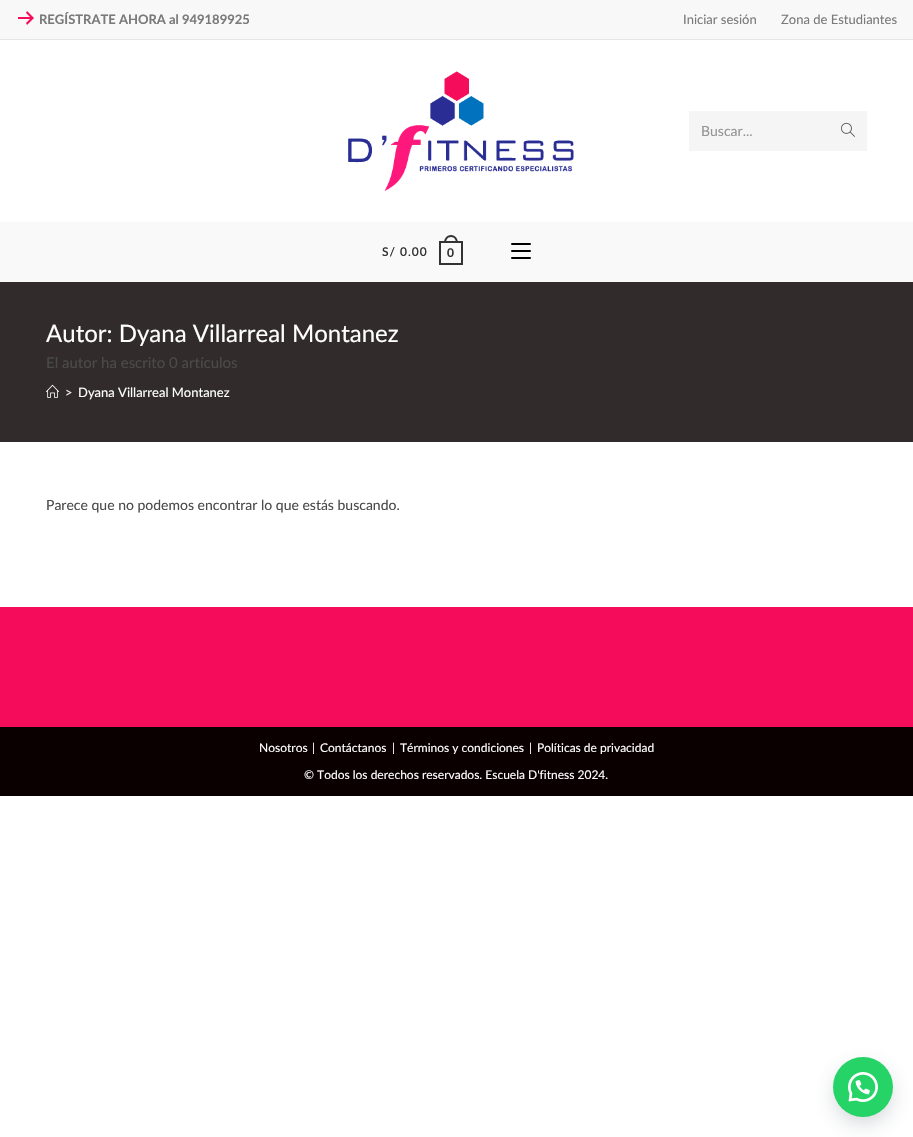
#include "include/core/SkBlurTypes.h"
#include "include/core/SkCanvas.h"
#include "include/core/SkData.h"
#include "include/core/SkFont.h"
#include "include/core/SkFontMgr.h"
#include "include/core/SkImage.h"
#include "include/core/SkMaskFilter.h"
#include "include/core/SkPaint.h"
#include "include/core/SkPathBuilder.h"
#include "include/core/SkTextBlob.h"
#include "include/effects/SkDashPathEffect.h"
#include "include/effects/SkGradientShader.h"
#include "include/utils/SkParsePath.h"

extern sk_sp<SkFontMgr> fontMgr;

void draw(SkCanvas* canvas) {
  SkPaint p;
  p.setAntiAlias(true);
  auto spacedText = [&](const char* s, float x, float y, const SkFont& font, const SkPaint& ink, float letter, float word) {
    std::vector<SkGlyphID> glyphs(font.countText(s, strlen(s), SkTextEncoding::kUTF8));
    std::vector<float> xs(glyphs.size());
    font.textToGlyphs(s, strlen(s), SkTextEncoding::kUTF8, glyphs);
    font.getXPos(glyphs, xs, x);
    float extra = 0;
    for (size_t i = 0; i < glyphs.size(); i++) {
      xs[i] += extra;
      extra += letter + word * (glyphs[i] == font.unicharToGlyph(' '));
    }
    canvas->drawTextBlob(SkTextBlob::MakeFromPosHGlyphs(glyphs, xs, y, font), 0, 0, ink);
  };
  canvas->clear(SK_ColorWHITE);
  p.setColor(SkColorSetRGB(248, 248, 248));
  canvas->drawRect(SkRect::MakeLTRB(0, 0, 913, 39), p);
  p.setColor(SkColorSetRGB(229, 229, 229));
  canvas->drawRect(SkRect::MakeLTRB(0, 39, 913, 40), p);
  canvas->drawImageRect(SkImages::DeferredFromEncodedData(SkData::MakeFromFileName("images/1.png")), SkRect::MakeLTRB(18, 11, 34, 25), SkSamplingOptions());
  canvas->drawImageRect(SkImages::DeferredFromEncodedData(SkData::MakeFromFileName("images/2.png")), SkRect::MakeLTRB(348, 71, 574, 191), SkSamplingOptions());
  p.setColor(SkColorSetRGB(245, 245, 245));
  canvas->drawRect(SkRect::MakeLTRB(689, 111, 867, 151), p);
  canvas->drawImageRect(SkImages::DeferredFromEncodedData(SkData::MakeFromFileName("images/3.png")), SkRect::MakeLTRB(841, 122, 855, 137), SkSamplingOptions());
  p.setColor(SkColorSetRGB(249, 249, 249));
  canvas->drawRect(SkRect::MakeLTRB(0, 222, 913, 282), p);
  p.setStyle(SkPaint::kStroke_Style);
  p.setStrokeWidth(2);
  p.setColor(SkColorSetRGB(51, 51, 51));
  canvas->drawRect(SkRect::MakeLTRB(440, 242, 462, 264), p);
  p.setStyle(SkPaint::kFill_Style);
  canvas->drawPath(SkPathBuilder(SkPathFillType::kEvenOdd).moveTo(451, 235).cubicTo(455.5f, 235, 458, 239, 458, 243).lineTo(444, 243).cubicTo(444, 239, 446.5f, 235, 451, 235).close().moveTo(451, 237).cubicTo(454.5f, 237, 456, 240, 456, 243).lineTo(446, 243).cubicTo(446, 240, 447.5f, 237, 451, 237).close().detach(), p);
  p.setColor(SK_ColorBLACK);
  canvas->drawRoundRect(SkRect::MakeLTRB(511, 257, 531, 259), 1, 1, p);
  canvas->drawRoundRect(SkRect::MakeLTRB(511, 243, 531, 245), 1, 1, p);
  canvas->drawRoundRect(SkRect::MakeLTRB(511, 250, 531, 252), 1, 1, p);
  p.setColor(SkColorSetRGB(50, 43, 43));
  canvas->drawRect(SkRect::MakeLTRB(0, 282, 913, 442), p);
  canvas->drawImageRect(SkImages::DeferredFromEncodedData(SkData::MakeFromFileName("images/4.png")), SkRect::MakeLTRB(46, 384, 59, 398), SkSamplingOptions());
  p.setColor(SkColorSetRGB(245, 12, 91));
  canvas->drawRect(SkRect::MakeLTRB(0, 607, 913, 727), p);
  p.setColor(SkColorSetRGB(10, 0, 0));
  canvas->drawRect(SkRect::MakeLTRB(0, 727, 913, 796), p);
  p.setColor(SkColorSetARGB(77, 45, 62, 79));
  p.setMaskFilter(SkMaskFilter::MakeBlur(kNormal_SkBlurStyle, 12.5f));
  canvas->drawRoundRect(SkRect::MakeLTRB(838, 1070, 888, 1120), 25, 25, p);
  p.setMaskFilter(nullptr);
  p.setColor(SkColorSetRGB(37, 211, 102));
  canvas->drawCircle(863, 1087, 30, p);
  canvas->drawImageRect(SkImages::DeferredFromEncodedData(SkData::MakeFromFileName("images/5.png")), SkRect::MakeLTRB(848, 1072, 878, 1102), SkSamplingOptions());
  SkFont font1(fontMgr->matchFamilyStyle("Lato", SkFontStyle::Bold()), 13);
  font1.setSubpixel(true);
  p.setColor(SkColorSetRGB(122, 122, 122));
  canvas->drawString("REGÍSTRATE AHORA al 949189925", 39, 24, font1, p);
  SkFont font2(fontMgr->matchFamilyStyle("Lato", SkFontStyle::Normal()), 13);
  font2.setSubpixel(true);
  canvas->drawString("Iniciar sesión", 683, 24, font2, p);
  canvas->drawString("Zona de Estudiantes", 781, 24, font2, p);
  SkFont font3(fontMgr->matchFamilyStyle("Lato", SkFontStyle::Normal()), 14);
  font3.setSubpixel(true);
  p.setColor(SkColorSetRGB(148, 148, 148));
  canvas->drawString("Buscar...", 701, 136, font3, p);
  SkFont font4(fontMgr->matchFamilyStyle("Lato", SkFontStyle(600, SkFontStyle::kNormal_Width, SkFontStyle::kUpright_Slant)), 12);
  font4.setSubpixel(true);
  p.setColor(SkColorSetRGB(51, 51, 51));
  spacedText("S/ 0.00", 382, 256, font4, p, 1, 0);
  SkFont font5(fontMgr->matchFamilyStyle("Lato", SkFontStyle::Bold()), 12);
  font5.setSubpixel(true);
  spacedText("0", 447, 257, font5, p, 1, 0);
  SkFont font6(fontMgr->matchFamilyStyle("Lato", SkFontStyle::Normal()), 24);
  font6.setSubpixel(true);
  p.setColor(SK_ColorWHITE);
  canvas->drawString("Autor: Dyana Villarreal Montanez", 46, 342, font6, p);
  SkFont font7(fontMgr->matchFamilyStyle("Lato", SkFontStyle::Normal()), 15);
  font7.setSubpixel(true);
  p.setColor(SkColorSetRGB(74, 74, 74));
  canvas->drawString("El autor ha escrito 0 artículos", 46, 368, font7, p);
  p.setColor(SkColorSetRGB(239, 239, 239));
  canvas->drawString(">", 65, 397, font2, p);
  p.setColor(SK_ColorWHITE);
  canvas->drawString("Dyana Villarreal Montanez", 78, 397, font2, p);
  p.setColor(SkColorSetRGB(74, 74, 74));
  canvas->drawString("Parece que no podemos encontrar lo que estás buscando.", 46, 510, font3, p);
  SkFont font8(fontMgr->matchFamilyStyle("Lato", SkFontStyle::Normal()), 12);
  font8.setSubpixel(true);
  p.setColor(SK_ColorWHITE);
  canvas->drawString("Nosotros", 259, 752, font8, p);
  canvas->drawString("|", 312, 752, font8, p);
  canvas->drawString("Contáctanos", 320, 752, font8, p);
  canvas->drawString("|", 392, 752, font8, p);
  canvas->drawString("Términos y condiciones", 400, 752, font8, p);
  canvas->drawString("|", 529, 752, font8, p);
  canvas->drawString("Políticas de privacidad", 537, 752, font8, p);
  canvas->drawString("© Todos los derechos reservados. Escuela D'fitness 2024.", 304, 779, font8, p);
}
